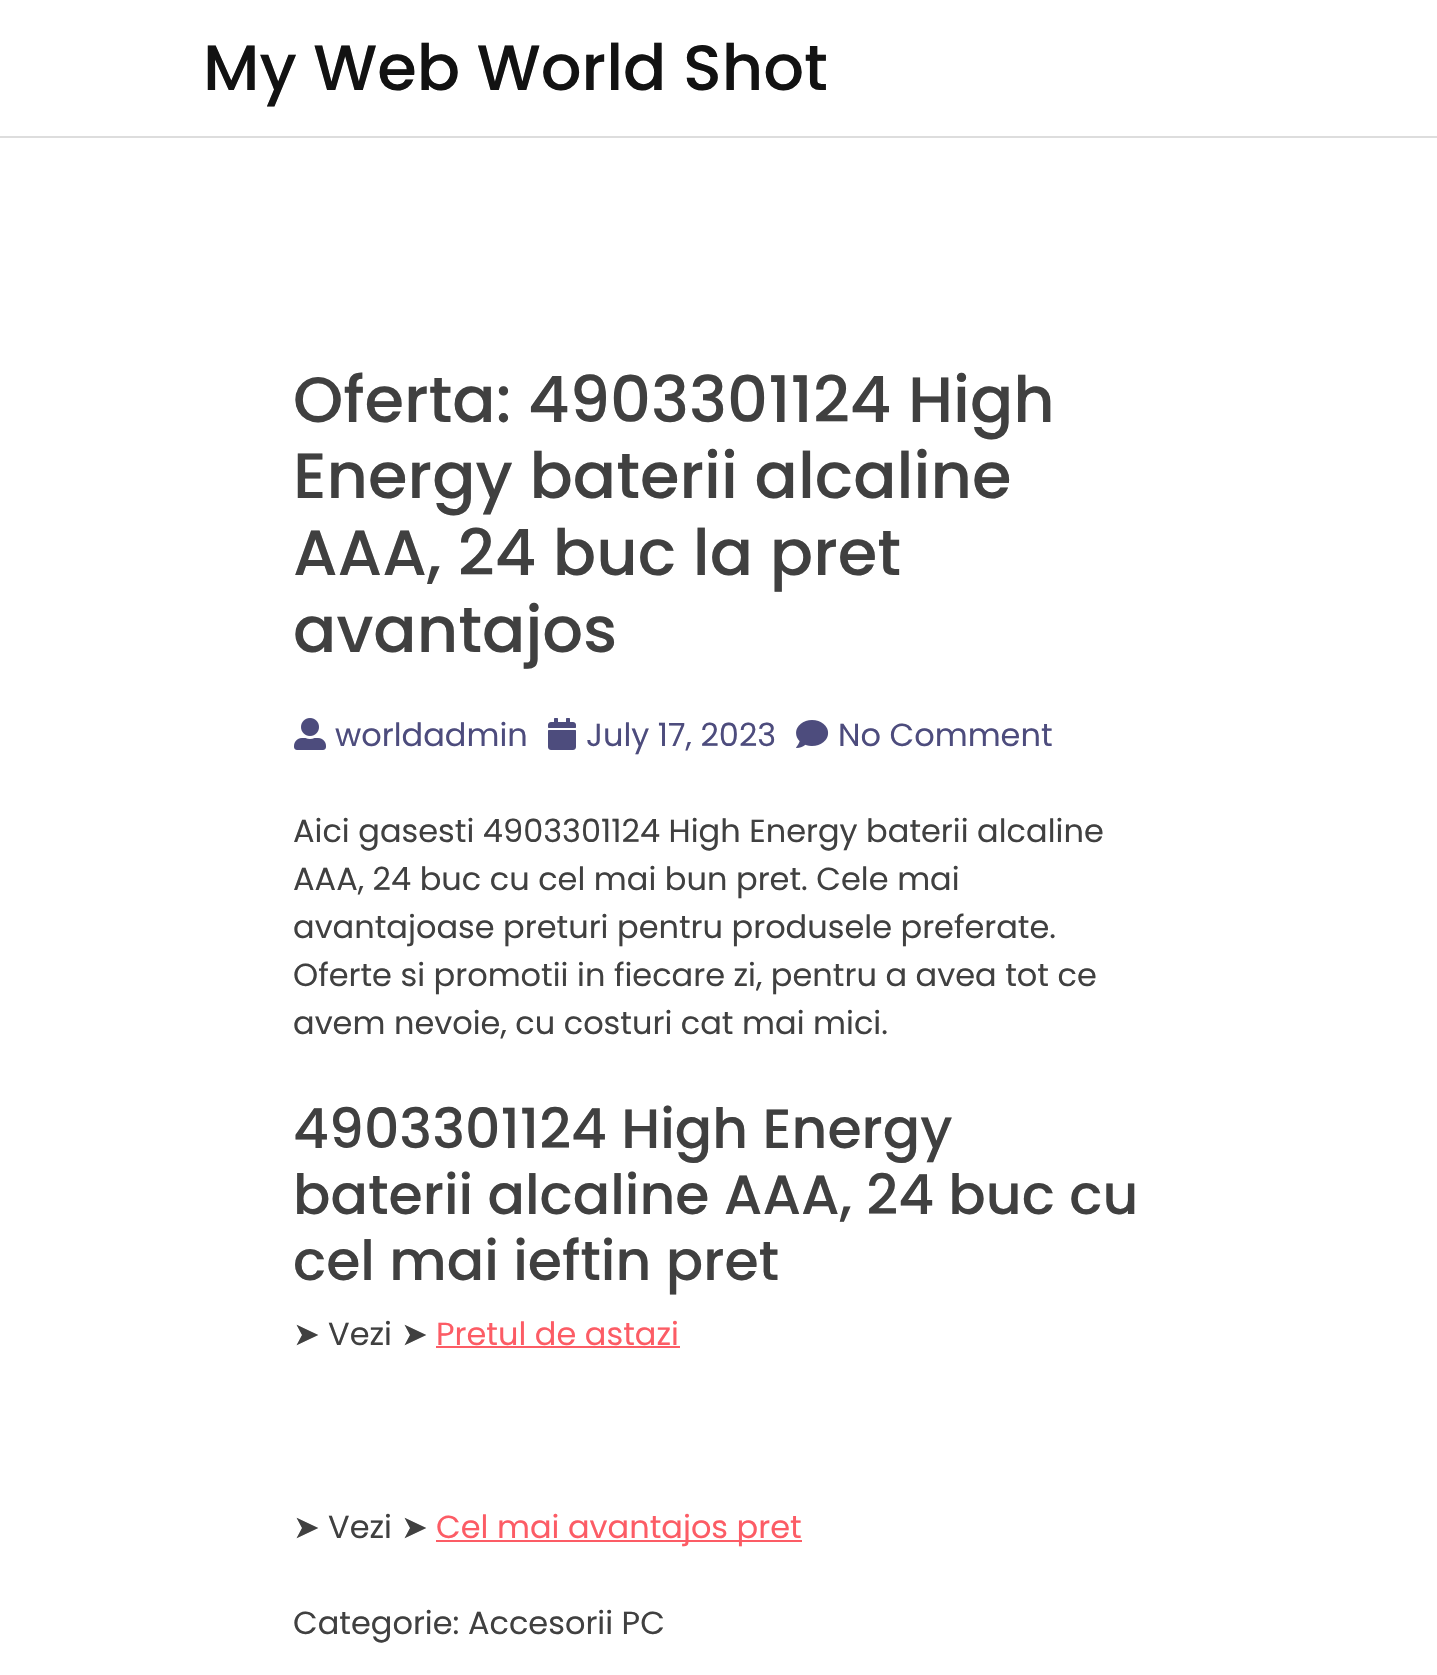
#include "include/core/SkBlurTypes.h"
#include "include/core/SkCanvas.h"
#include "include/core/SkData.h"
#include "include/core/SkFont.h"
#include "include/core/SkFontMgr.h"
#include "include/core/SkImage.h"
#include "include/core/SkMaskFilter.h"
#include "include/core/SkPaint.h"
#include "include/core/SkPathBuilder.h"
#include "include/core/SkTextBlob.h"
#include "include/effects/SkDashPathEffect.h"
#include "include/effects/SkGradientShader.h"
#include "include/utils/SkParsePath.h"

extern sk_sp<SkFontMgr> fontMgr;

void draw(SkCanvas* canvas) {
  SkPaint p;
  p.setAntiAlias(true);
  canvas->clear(SK_ColorWHITE);
  p.setColor(SkColorSetRGB(221, 221, 221));
  canvas->drawRect(SkRect::MakeLTRB(0, 136, 1437, 138), p);
  canvas->drawImageRect(SkImages::DeferredFromEncodedData(SkData::MakeFromFileName("images/1.png")), SkRect::MakeLTRB(294, 718, 326, 750), SkSamplingOptions());
  canvas->drawImageRect(SkImages::DeferredFromEncodedData(SkData::MakeFromFileName("images/2.png")), SkRect::MakeLTRB(548, 718, 576, 750), SkSamplingOptions());
  canvas->drawImageRect(SkImages::DeferredFromEncodedData(SkData::MakeFromFileName("images/3.png")), SkRect::MakeLTRB(796, 720, 829, 748), SkSamplingOptions());
  p.setColor(SkColorSetRGB(252, 92, 101));
  canvas->drawRect(SkRect::MakeLTRB(436, 1346, 680, 1348), p);
  canvas->drawRect(SkRect::MakeLTRB(436, 1540, 802, 1542), p);
  SkFont font1(fontMgr->matchFamilyStyle("Poppins", SkFontStyle(500, SkFontStyle::kNormal_Width, SkFontStyle::kUpright_Slant)), 64);
  font1.setSubpixel(true);
  p.setColor(SkColorSetRGB(18, 18, 18));
  canvas->drawString("My Web World Shot", 203, 90, font1, p);
  p.setColor(SkColorSetRGB(64, 64, 64));
  canvas->drawString("Oferta: 4903301124 High", 293, 422, font1, p);
  canvas->drawString("Energy baterii alcaline", 293, 498, font1, p);
  canvas->drawString("AAA, 24 buc la pret", 293, 575, font1, p);
  canvas->drawString("avantajos", 293, 652, font1, p);
  SkFont font2(fontMgr->matchFamilyStyle("Poppins", SkFontStyle::Normal()), 32);
  font2.setSubpixel(true);
  p.setColor(SkColorSetRGB(77, 76, 125));
  canvas->drawString("worldadmin", 335, 746, font2, p);
  canvas->drawString("July 17, 2023", 586, 746, font2, p);
  canvas->drawString("No Comment", 838, 746, font2, p);
  p.setColor(SkColorSetRGB(64, 64, 64));
  canvas->drawString("Aici gasesti 4903301124 High Energy baterii alcaline", 293, 842, font2, p);
  canvas->drawString("AAA, 24 buc cu cel mai bun pret. Cele mai", 293, 890, font2, p);
  canvas->drawString("avantajoase preturi pentru produsele preferate.", 293, 938, font2, p);
  canvas->drawString("Oferte si promotii in fiecare zi, pentru a avea tot ce", 293, 986, font2, p);
  canvas->drawString("avem nevoie, cu costuri cat mai mici.", 293, 1034, font2, p);
  SkFont font3(fontMgr->matchFamilyStyle("Poppins", SkFontStyle(500, SkFontStyle::kNormal_Width, SkFontStyle::kUpright_Slant)), 55.3f);
  font3.setSubpixel(true);
  canvas->drawString("4903301124 High Energy", 293, 1148, font3, p);
  canvas->drawString("baterii alcaline AAA, 24 buc cu", 293, 1214, font3, p);
  canvas->drawString("cel mai ieftin pret", 293, 1280, font3, p);
  SkFont font4(fontMgr->matchFamilyStyle("DejaVu Sans", SkFontStyle::Normal()), 32);
  font4.setSubpixel(true);
  canvas->drawString("➤", 293, 1345, font4, p);
  canvas->drawString("Vezi", 328, 1345, font2, p);
  canvas->drawString("➤", 401, 1345, font4, p);
  p.setColor(SkColorSetRGB(252, 92, 101));
  canvas->drawString("Pretul de astazi", 436, 1345, font2, p);
  p.setColor(SkColorSetRGB(64, 64, 64));
  canvas->drawString("➤", 293, 1538, font4, p);
  canvas->drawString("Vezi", 328, 1538, font2, p);
  canvas->drawString("➤", 401, 1538, font4, p);
  p.setColor(SkColorSetRGB(252, 92, 101));
  canvas->drawString("Cel mai avantajos pret", 436, 1538, font2, p);
  p.setColor(SkColorSetRGB(64, 64, 64));
  canvas->drawString("Categorie: Accesorii PC", 293, 1634, font2, p);
}
